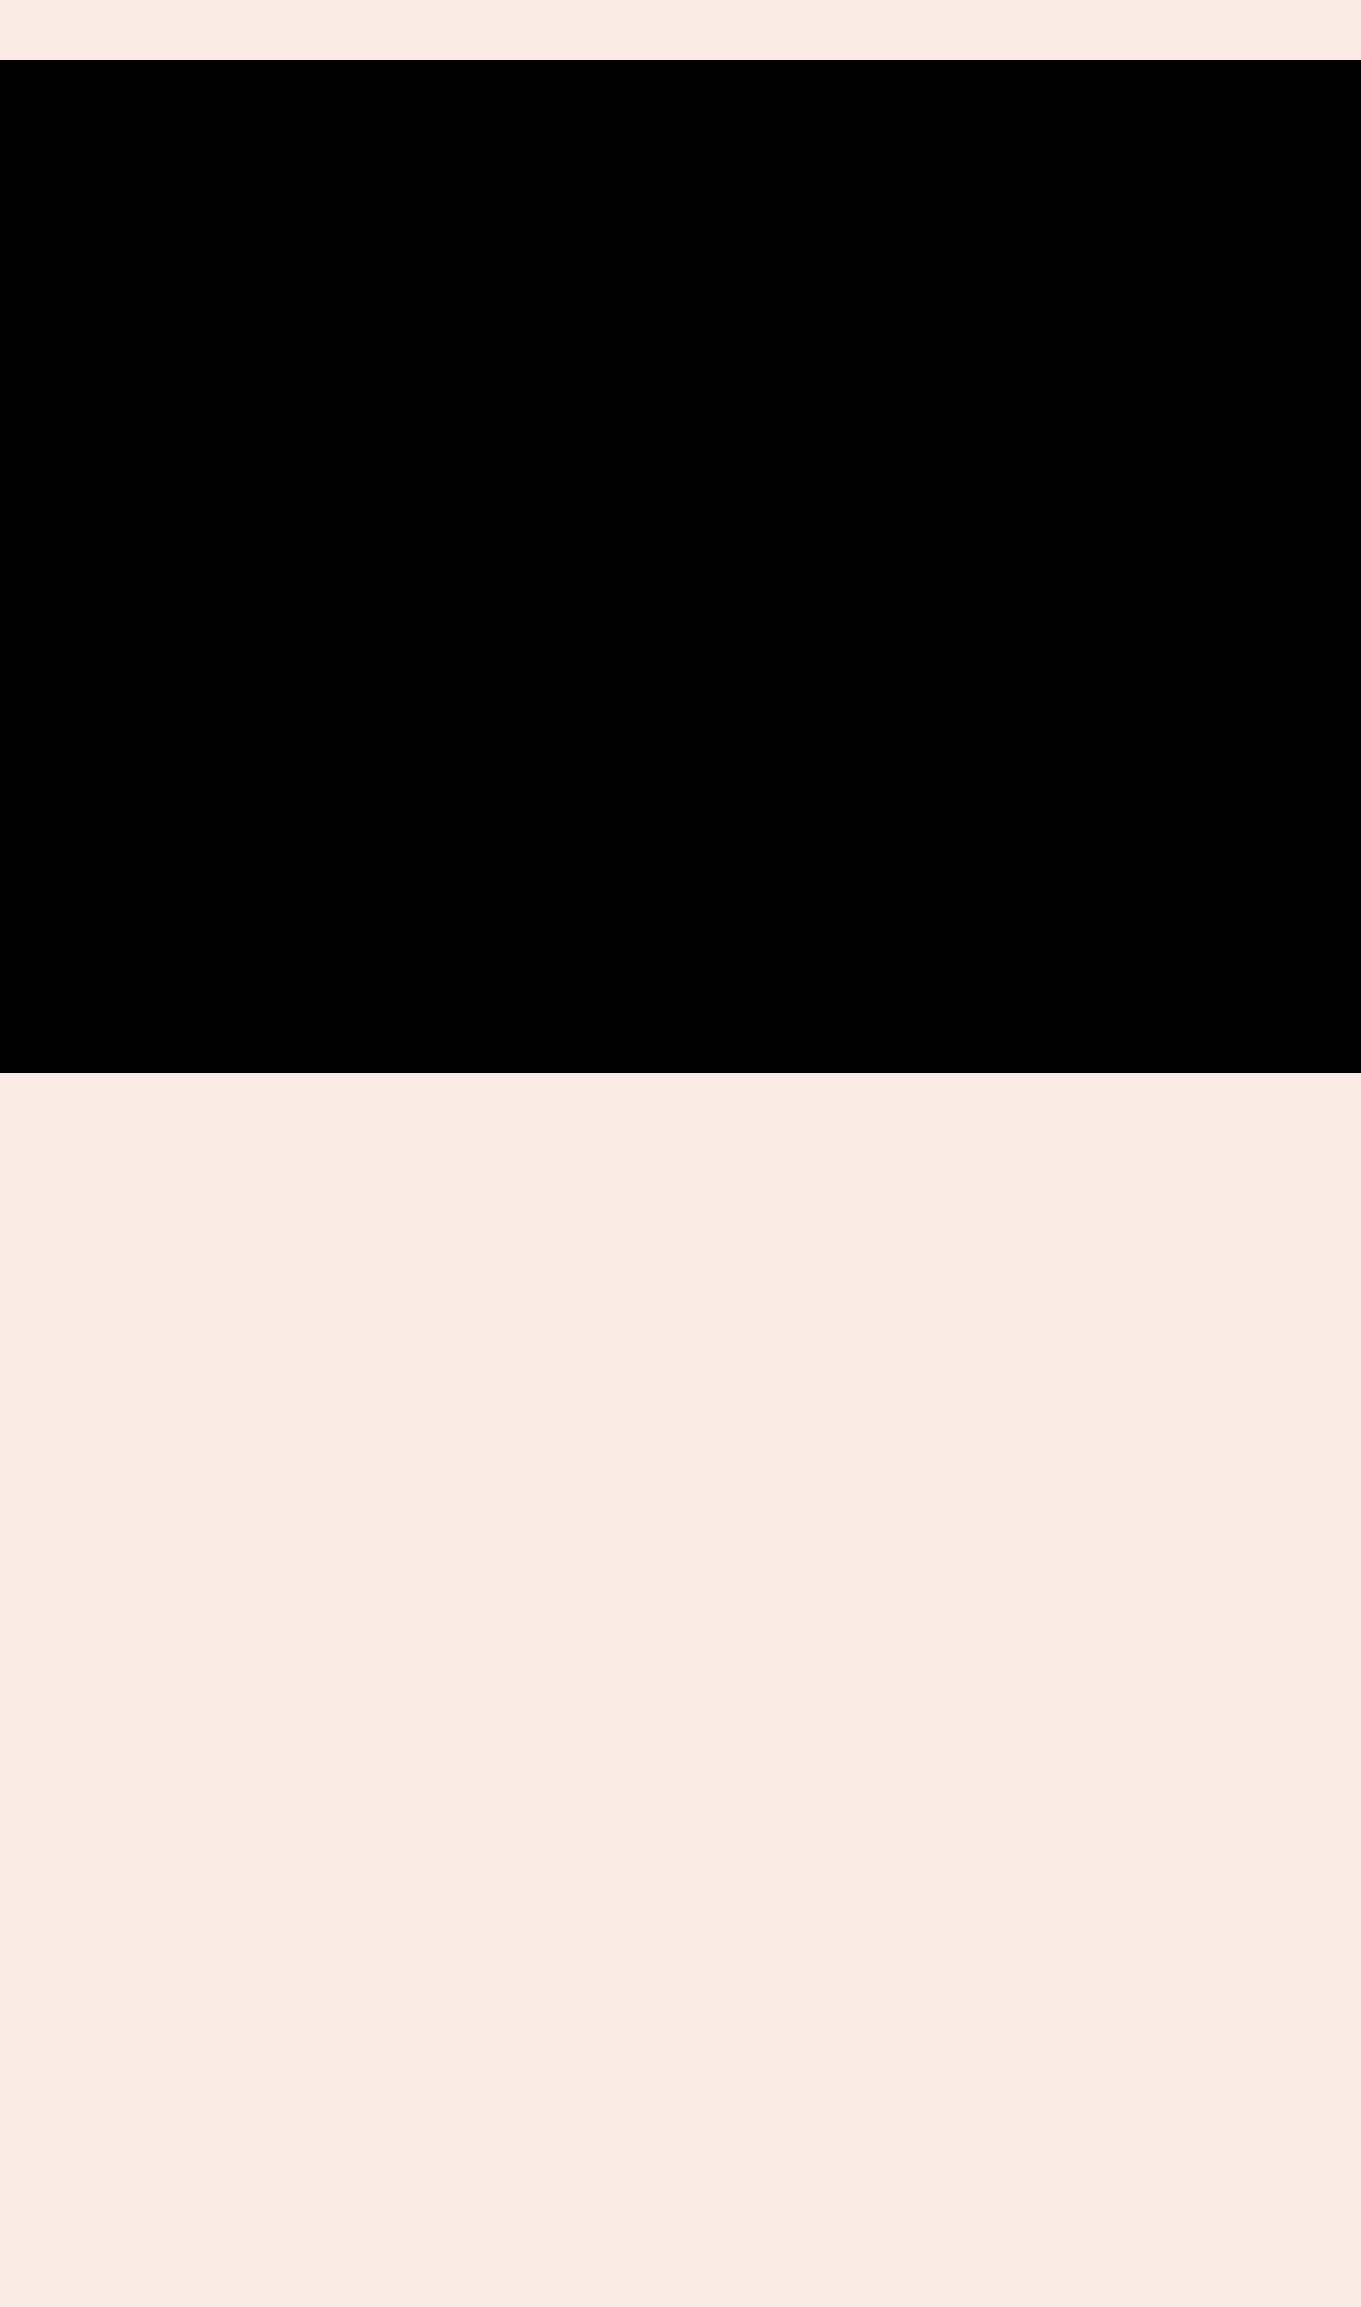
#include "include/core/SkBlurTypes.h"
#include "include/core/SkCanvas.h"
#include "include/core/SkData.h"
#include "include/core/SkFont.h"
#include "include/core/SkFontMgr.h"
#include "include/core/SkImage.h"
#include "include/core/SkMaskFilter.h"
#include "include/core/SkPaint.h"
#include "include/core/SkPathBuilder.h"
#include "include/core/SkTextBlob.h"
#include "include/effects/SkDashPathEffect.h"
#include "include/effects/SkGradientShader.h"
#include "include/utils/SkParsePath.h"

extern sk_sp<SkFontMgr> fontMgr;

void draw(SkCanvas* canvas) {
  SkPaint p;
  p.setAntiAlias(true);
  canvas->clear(SkColorSetRGB(251, 235, 229));
  p.setColor(SK_ColorBLACK);
  canvas->drawRect(SkRect::MakeLTRB(0, 60, 1361, 1073), p);
}
